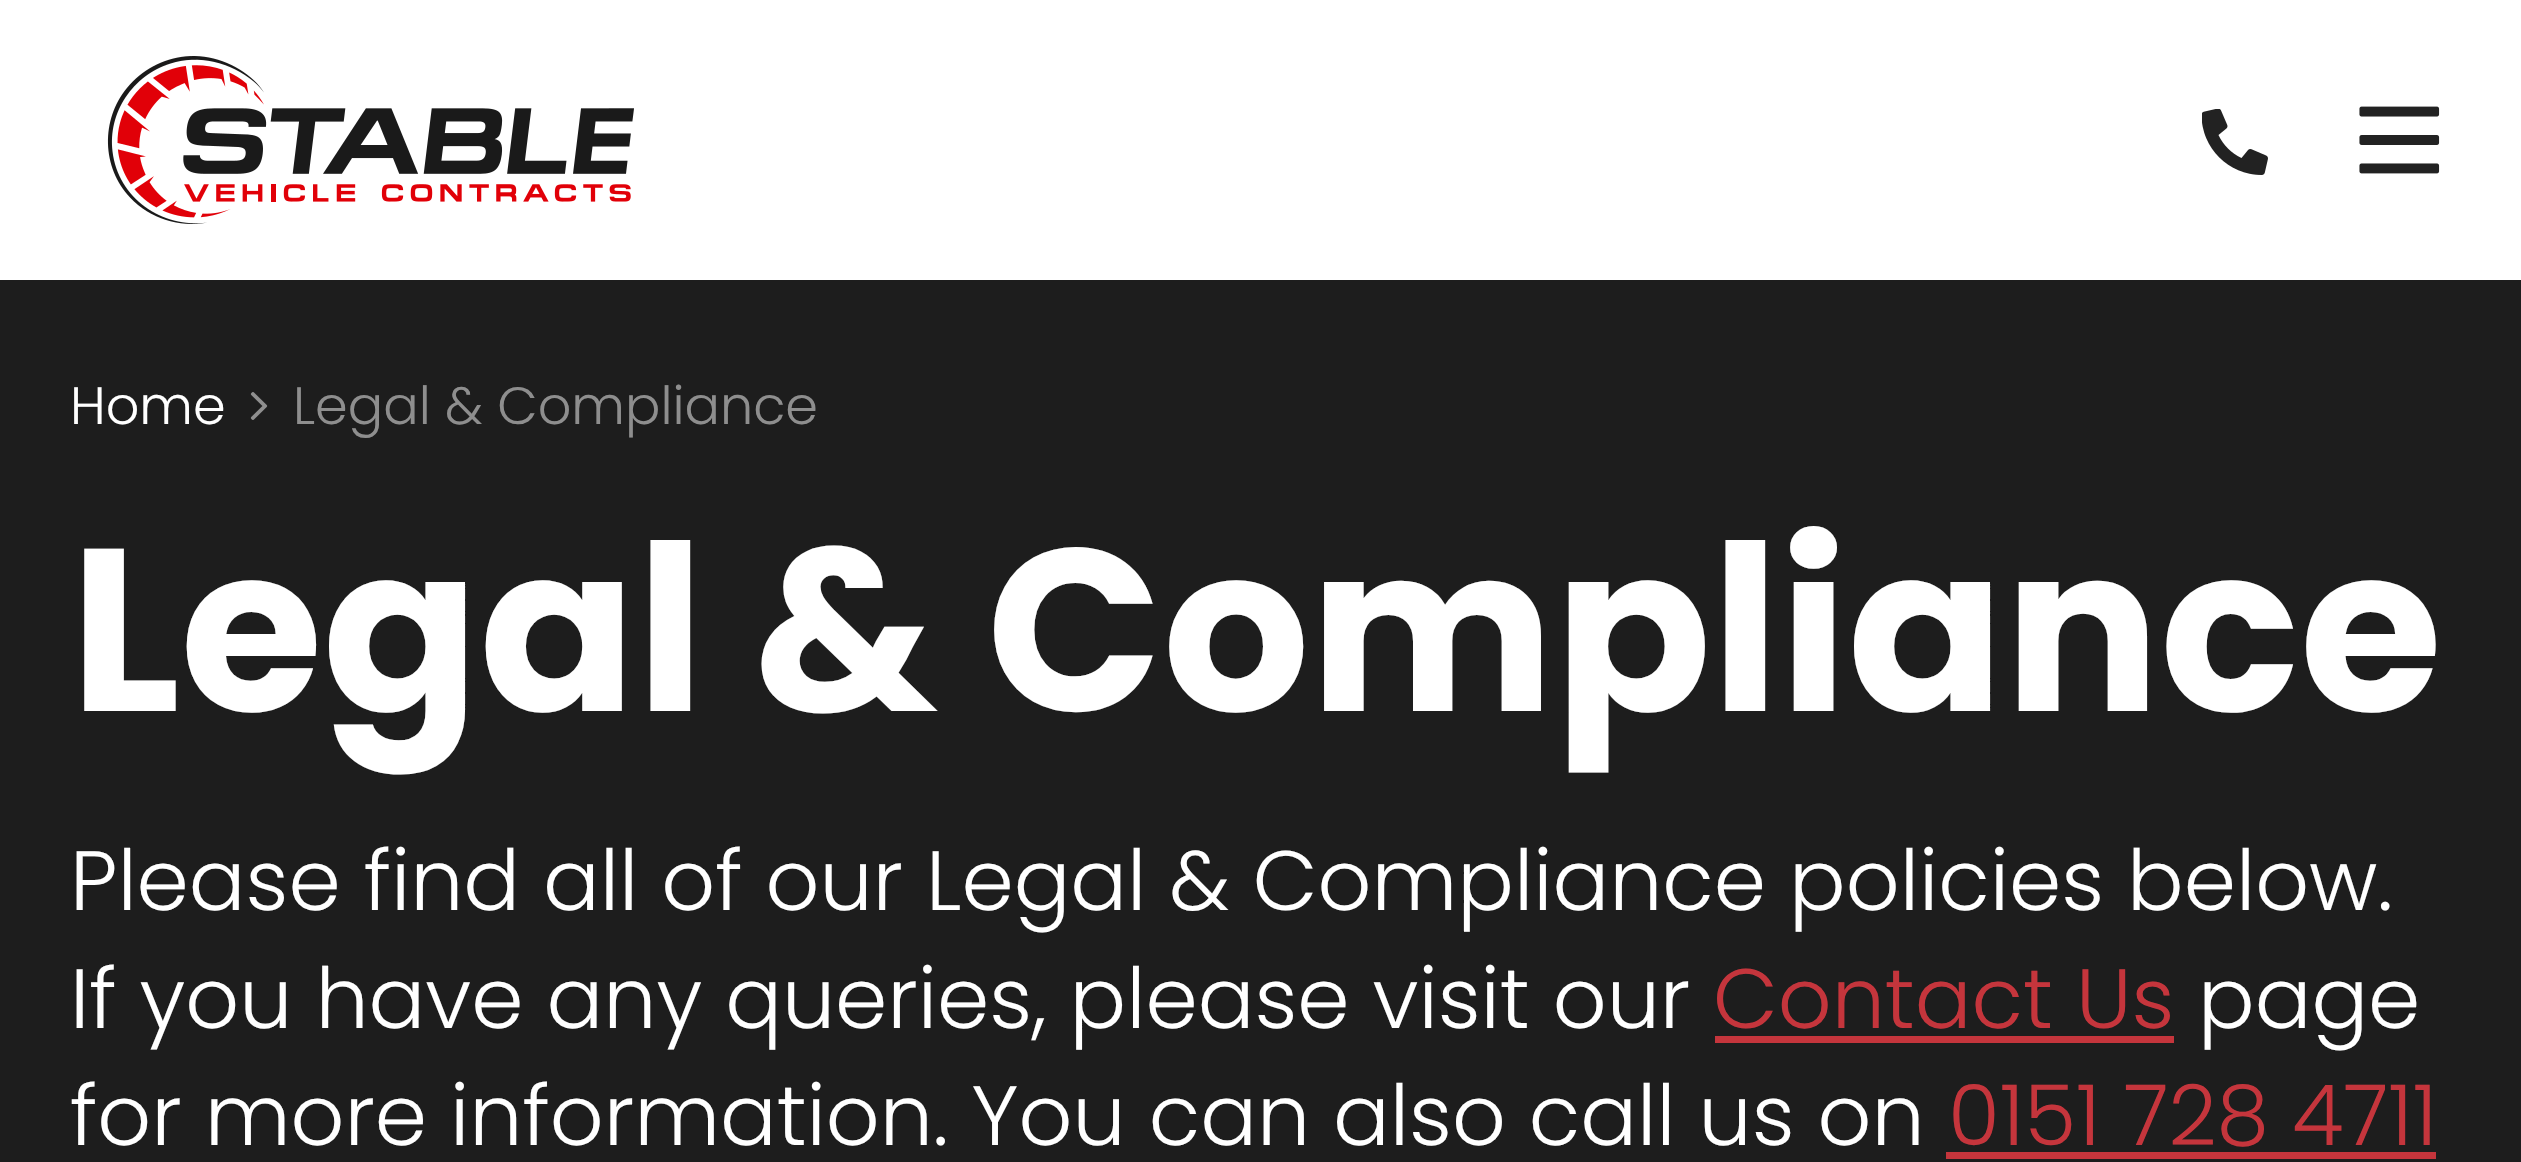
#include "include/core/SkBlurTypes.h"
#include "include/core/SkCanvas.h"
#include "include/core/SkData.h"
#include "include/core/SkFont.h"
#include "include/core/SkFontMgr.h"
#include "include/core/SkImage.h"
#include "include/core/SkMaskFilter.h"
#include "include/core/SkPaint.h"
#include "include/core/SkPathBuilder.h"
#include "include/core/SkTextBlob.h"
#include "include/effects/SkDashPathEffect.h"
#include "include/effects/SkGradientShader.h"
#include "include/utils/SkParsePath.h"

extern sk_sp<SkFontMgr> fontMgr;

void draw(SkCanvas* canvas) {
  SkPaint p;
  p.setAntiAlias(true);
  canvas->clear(SkColorSetRGB(29, 29, 29));
  p.setColor(SK_ColorWHITE);
  canvas->drawRect(SkRect::MakeLTRB(0, 0, 2521, 280), p);
  canvas->drawImageRect(SkImages::DeferredFromEncodedData(SkData::MakeFromFileName("images/1.png")), SkRect::MakeLTRB(107, 56, 634, 224), SkSamplingOptions());
  canvas->drawImageRect(SkImages::DeferredFromEncodedData(SkData::MakeFromFileName("images/2.png")), SkRect::MakeLTRB(2202, 109, 2268, 175), SkSamplingOptions());
  canvas->drawImageRect(SkImages::DeferredFromEncodedData(SkData::MakeFromFileName("images/3.png")), SkRect::MakeLTRB(2359, 106, 2440, 174), SkSamplingOptions());
  canvas->drawImageRect(SkImages::DeferredFromEncodedData(SkData::MakeFromFileName("images/4.png")), SkRect::MakeLTRB(250, 392, 268, 420), SkSamplingOptions());
  p.setColor(SkColorSetRGB(197, 53, 60));
  canvas->drawRect(SkRect::MakeLTRB(1715, 1036, 2174, 1043), p);
  canvas->drawRect(SkRect::MakeLTRB(1946, 1152, 2436, 1159), p);
  SkFont font1(fontMgr->matchFamilyStyle("Poppins", SkFontStyle(300, SkFontStyle::kNormal_Width, SkFontStyle::kUpright_Slant)), 52.5f);
  font1.setSubpixel(true);
  p.setColor(SK_ColorWHITE);
  canvas->drawString("Home", 70, 424, font1, p);
  p.setColor(SkColorSetRGB(142, 142, 142));
  canvas->drawString("Legal & Compliance", 293, 424, font1, p);
  SkFont font2(fontMgr->matchFamilyStyle("Poppins", SkFontStyle::Bold()), 231);
  font2.setSubpixel(true);
  p.setColor(SK_ColorWHITE);
  canvas->drawString("Legal & Compliance", 70, 711, font2, p);
  SkFont font3(fontMgr->matchFamilyStyle("Poppins", SkFontStyle(300, SkFontStyle::kNormal_Width, SkFontStyle::kUpright_Slant)), 84);
  font3.setSubpixel(true);
  canvas->drawString("Please find all of our Legal & Compliance policies below.", 70, 910, font3, p);
  canvas->drawString("If you have any queries, please visit our", 70, 1028, font3, p);
  p.setColor(SkColorSetRGB(197, 53, 60));
  canvas->drawString("Contact Us", 1713, 1028, font3, p);
  p.setColor(SK_ColorWHITE);
  canvas->drawString("page", 2198, 1028, font3, p);
  canvas->drawString("for more information. You can also call us on", 70, 1145, font3, p);
  p.setColor(SkColorSetRGB(197, 53, 60));
  canvas->drawString("0151 728 4711", 1948, 1145, font3, p);
}
